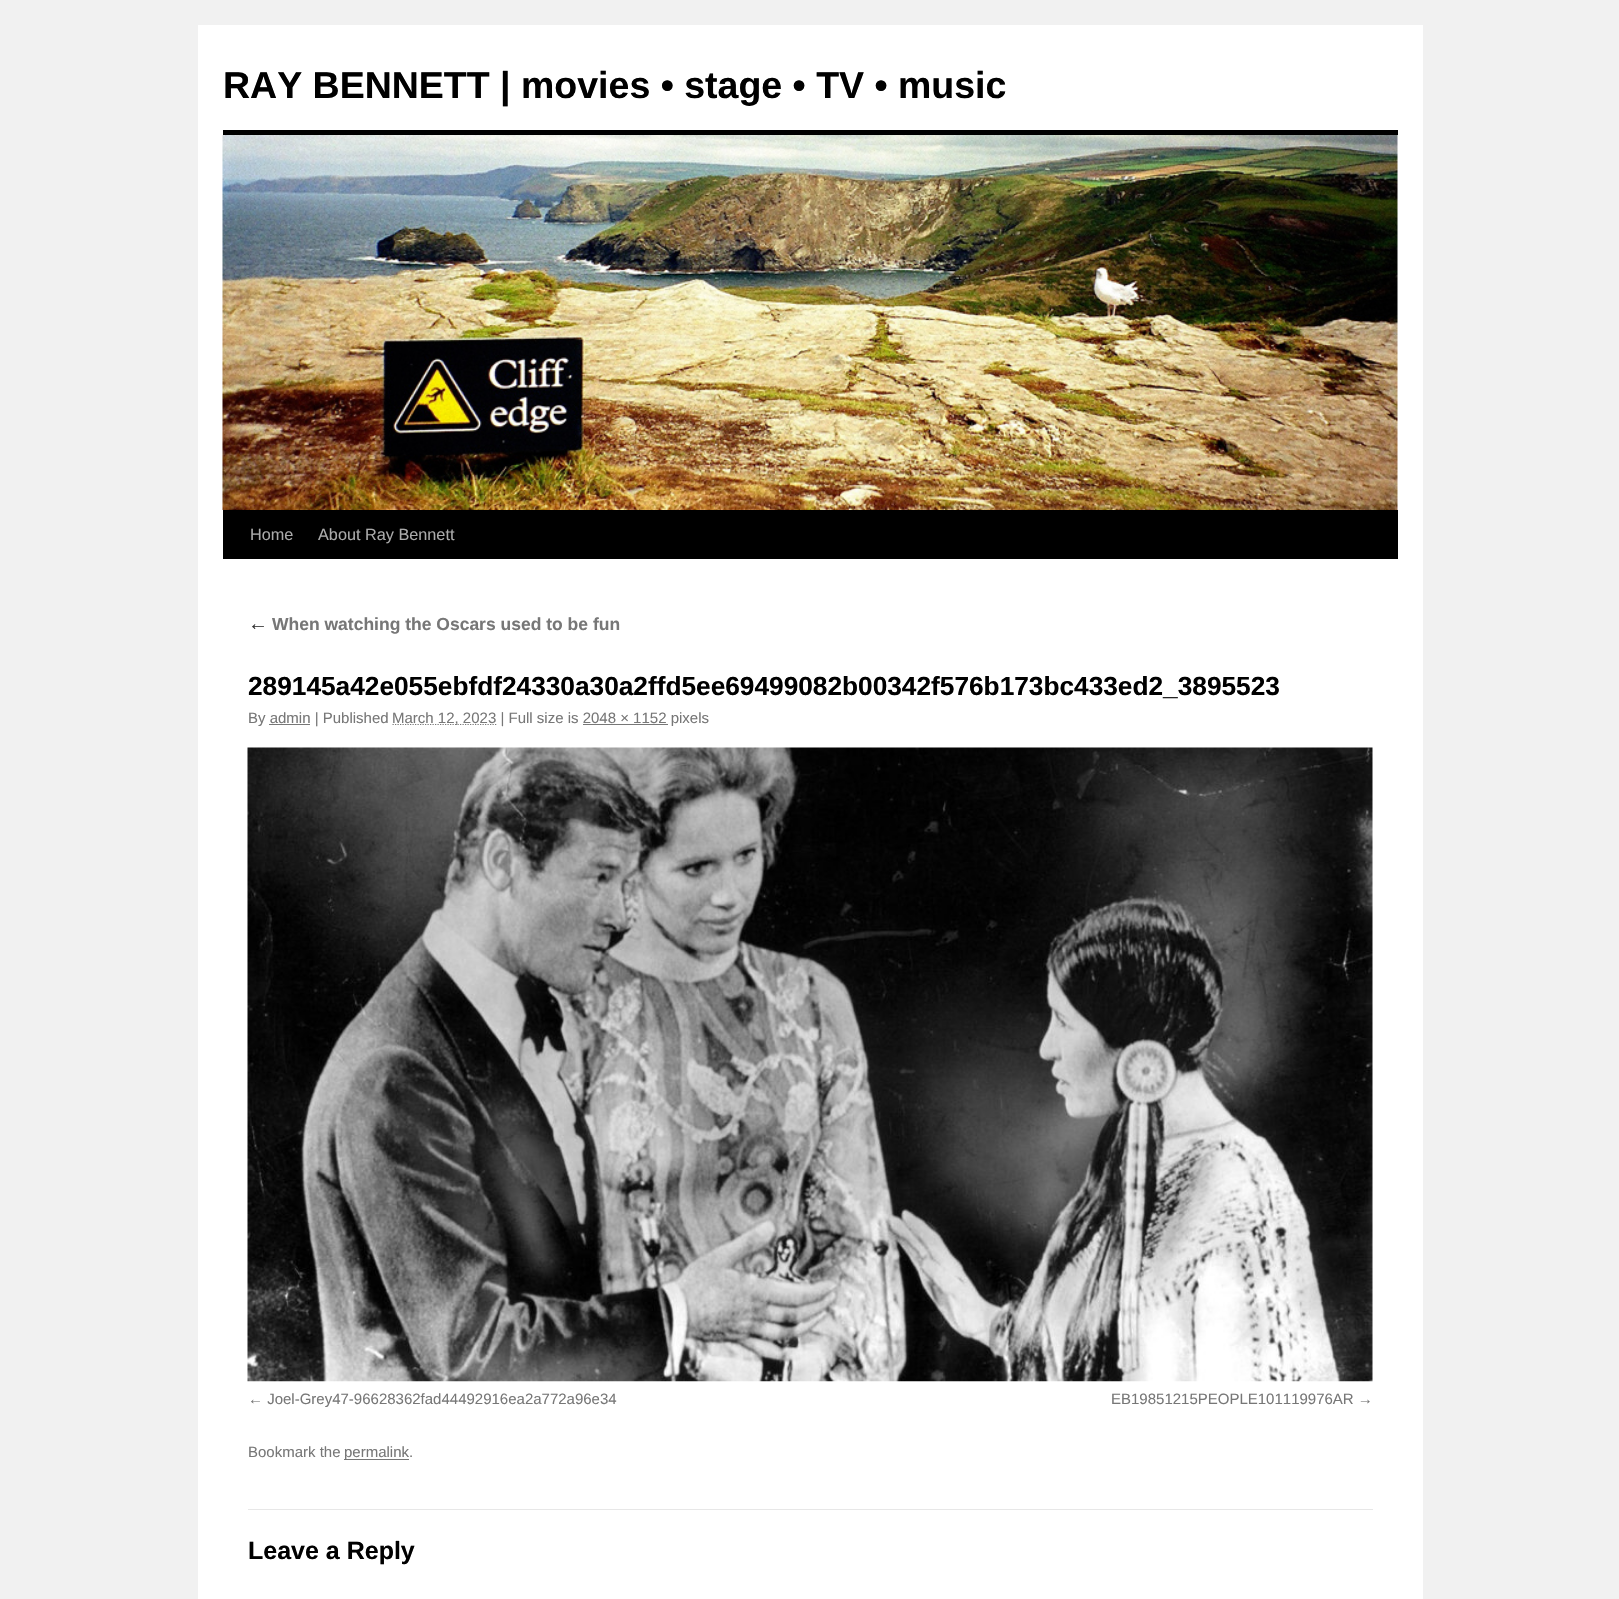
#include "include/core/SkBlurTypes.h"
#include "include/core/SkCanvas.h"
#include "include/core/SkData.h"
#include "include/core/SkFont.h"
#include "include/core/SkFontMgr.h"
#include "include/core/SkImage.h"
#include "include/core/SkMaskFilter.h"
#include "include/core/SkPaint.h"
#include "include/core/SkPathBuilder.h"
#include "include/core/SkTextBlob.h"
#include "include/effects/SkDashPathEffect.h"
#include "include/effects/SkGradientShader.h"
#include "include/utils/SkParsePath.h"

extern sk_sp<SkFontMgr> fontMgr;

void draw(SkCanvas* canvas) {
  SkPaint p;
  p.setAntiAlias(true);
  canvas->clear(SkColorSetRGB(241, 241, 241));
  p.setColor(SK_ColorWHITE);
  canvas->drawRect(SkRect::MakeLTRB(198, 25, 1423, 1599), p);
  p.setColor(SK_ColorBLACK);
  canvas->drawRect(SkRect::MakeLTRB(223, 130, 1398, 135), p);
  canvas->drawRect(SkRect::MakeLTRB(223, 510, 1398, 559), p);
  canvas->drawImageRect(SkImages::DeferredFromEncodedData(SkData::MakeFromFileName("images/1.png")), SkRect::MakeLTRB(222, 135, 1398, 510), SkSamplingOptions());
  p.setStyle(SkPaint::kStroke_Style);
  p.setStrokeWidth(1.2f);
  p.setColor(SkColorSetRGB(119, 119, 119));
  p.setPathEffect(SkDashPathEffect::Make({{1.25f, 1.25f}}, 0));
  canvas->drawPath(SkPathBuilder().moveTo(392.5f, 724.5f).lineTo(496.5f, 724.5f).detach(), p);
  p.setPathEffect(nullptr);
  p.setStyle(SkPaint::kFill_Style);
  canvas->drawRect(SkRect::MakeLTRB(269, 724, 310, 725), p);
  canvas->drawRect(SkRect::MakeLTRB(583, 724, 668, 725), p);
  canvas->drawImageRect(SkImages::DeferredFromEncodedData(SkData::MakeFromFileName("images/2.png")), SkRect::MakeLTRB(247, 747, 1373, 1382), SkSamplingOptions());
  canvas->drawRect(SkRect::MakeLTRB(344, 1459, 409, 1460), p);
  p.setColor(SkColorSetRGB(231, 231, 231));
  canvas->drawRect(SkRect::MakeLTRB(248, 1509, 1373, 1510), p);
  SkFont font1(fontMgr->matchFamilyStyle("Liberation Sans", SkFontStyle::Bold()), 37.5f);
  font1.setSubpixel(true);
  p.setColor(SK_ColorBLACK);
  canvas->drawString("RAY BENNETT | movies • stage • TV • music", 223, 98, font1, p);
  SkFont font2(fontMgr->matchFamilyStyle("Liberation Sans", SkFontStyle::Normal()), 16.25f);
  font2.setSubpixel(true);
  p.setColor(SkColorSetRGB(170, 170, 170));
  canvas->drawString("Home", 250, 540, font2, p);
  canvas->drawString("About Ray Bennett", 318, 540, font2, p);
  SkFont font3(fontMgr->matchFamilyStyle("Liberation Serif", SkFontStyle::Italic()), 20);
  font3.setSubpixel(true);
  p.setColor(SkColorSetRGB(51, 51, 51));
  canvas->drawString("←", 248, 630, font3, p);
  SkFont font4(fontMgr->matchFamilyStyle("Liberation Sans", SkFontStyle::Bold()), 17.5f);
  font4.setSubpixel(true);
  p.setColor(SkColorSetRGB(119, 119, 119));
  canvas->drawString("When watching the Oscars used to be fun", 272, 630, font4, p);
  SkFont font5(fontMgr->matchFamilyStyle("Liberation Sans", SkFontStyle::Bold()), 26.25f);
  font5.setSubpixel(true);
  p.setColor(SK_ColorBLACK);
  canvas->drawString("289145a42e055ebfdf24330a30a2ffd5ee69499082b00342f576b173bc433ed2_3895523", 248, 695, font5, p);
  SkFont font6(fontMgr->matchFamilyStyle("Liberation Sans", SkFontStyle::Normal()), 15);
  font6.setSubpixel(true);
  p.setColor(SkColorSetRGB(119, 119, 119));
  canvas->drawString("By admin | Published", 248, 723, font6, p);
  canvas->drawString("March 12, 2023 | Full size is 2048 × 1152 pixels", 392, 723, font6, p);
  canvas->drawString("← Joel-Grey47-96628362fad44492916ea2a772a96e34", 248, 1404, font6, p);
  canvas->drawString("EB19851215PEOPLE101119976AR →", 1111, 1404, font6, p);
  canvas->drawString("Bookmark the", 248, 1457, font6, p);
  canvas->drawString("permalink.", 344, 1457, font6, p);
  SkFont font7(fontMgr->matchFamilyStyle("Liberation Sans", SkFontStyle::Bold()), 25);
  font7.setSubpixel(true);
  p.setColor(SK_ColorBLACK);
  canvas->drawString("Leave a Reply", 248, 1559, font7, p);
}
